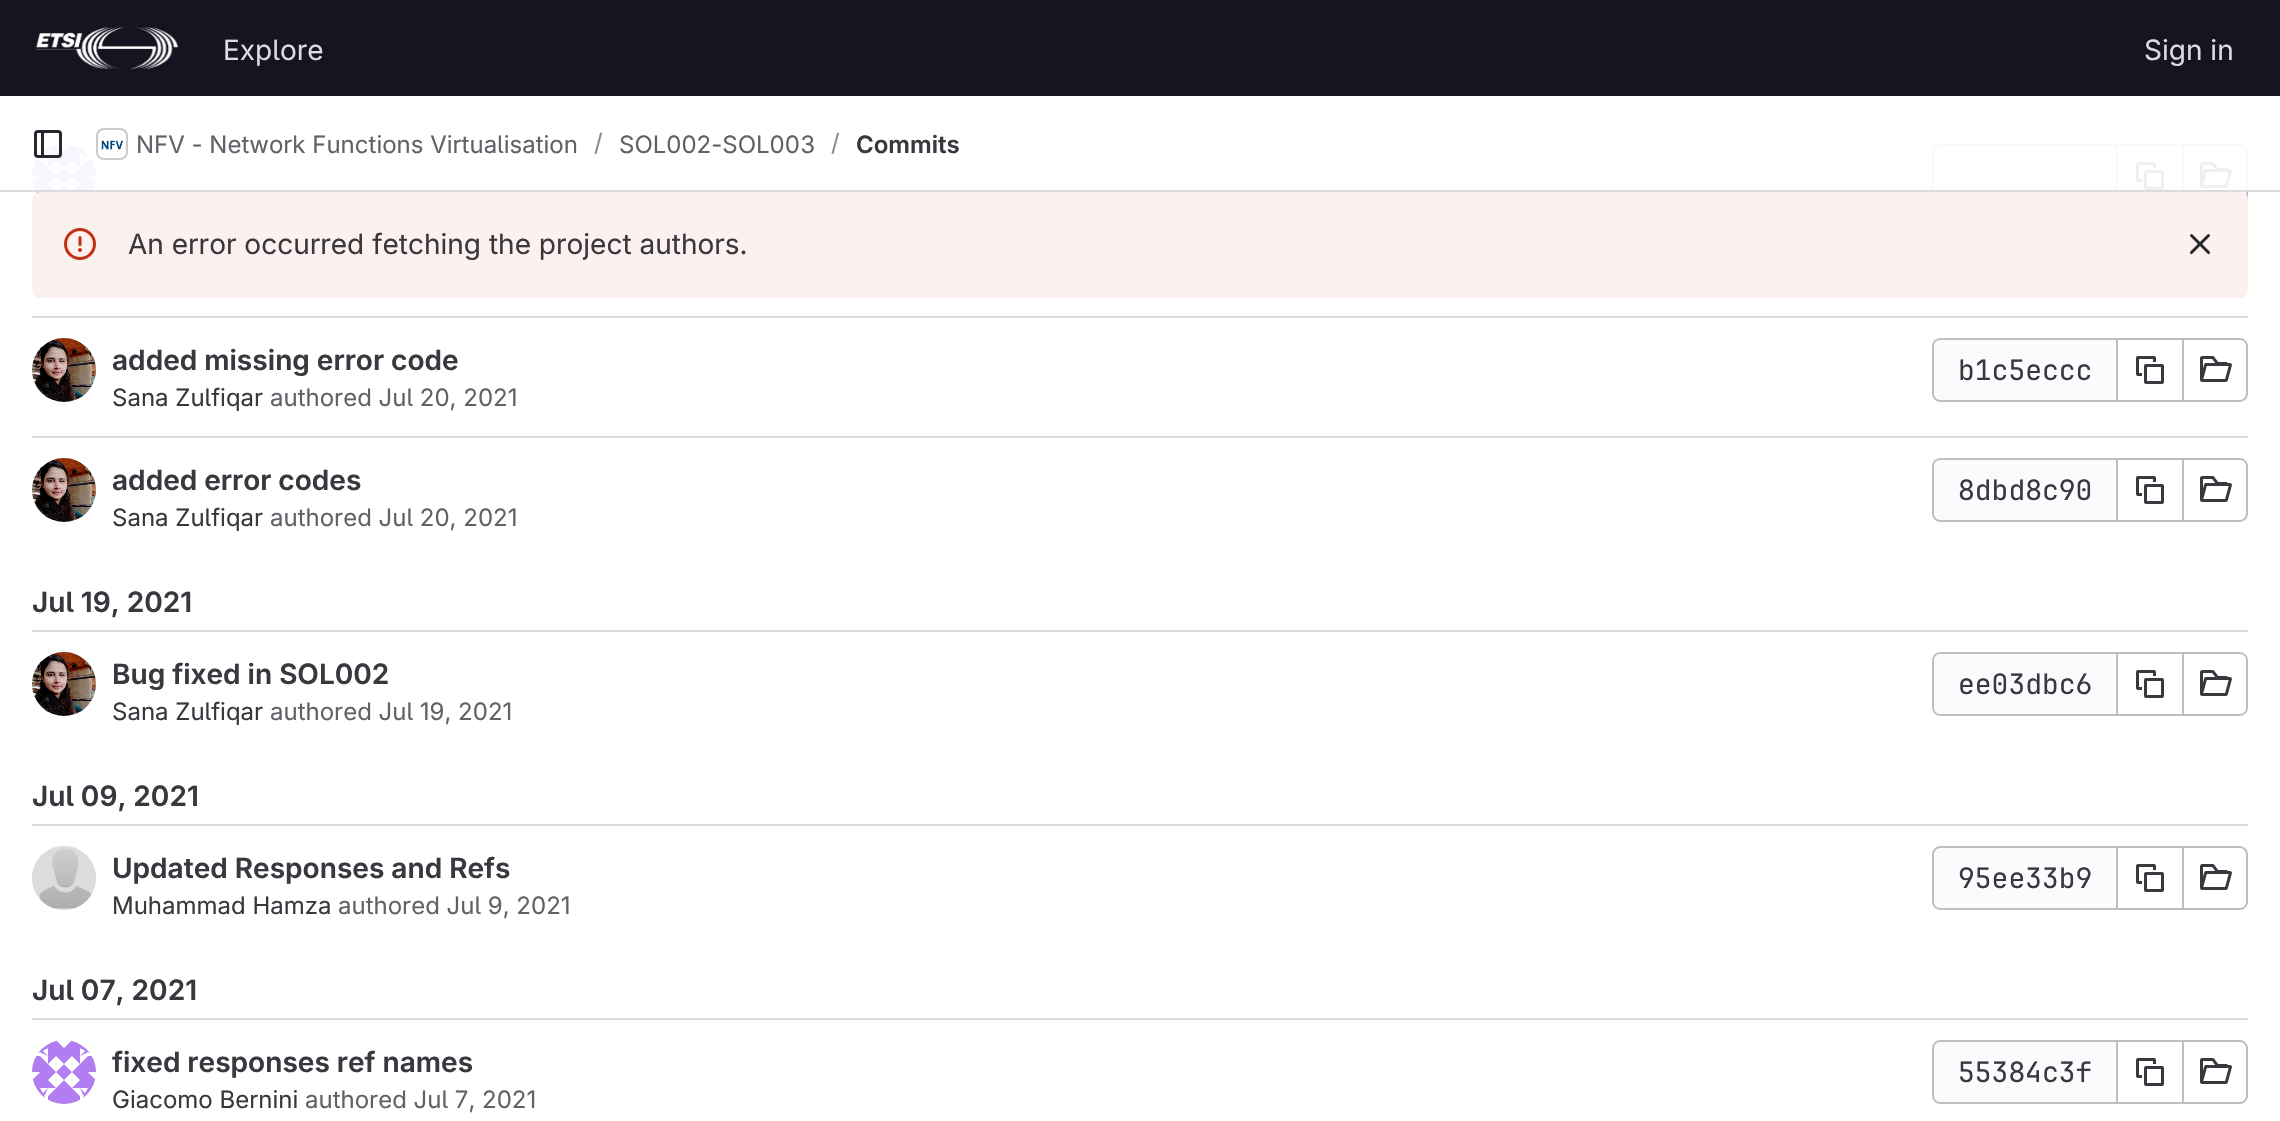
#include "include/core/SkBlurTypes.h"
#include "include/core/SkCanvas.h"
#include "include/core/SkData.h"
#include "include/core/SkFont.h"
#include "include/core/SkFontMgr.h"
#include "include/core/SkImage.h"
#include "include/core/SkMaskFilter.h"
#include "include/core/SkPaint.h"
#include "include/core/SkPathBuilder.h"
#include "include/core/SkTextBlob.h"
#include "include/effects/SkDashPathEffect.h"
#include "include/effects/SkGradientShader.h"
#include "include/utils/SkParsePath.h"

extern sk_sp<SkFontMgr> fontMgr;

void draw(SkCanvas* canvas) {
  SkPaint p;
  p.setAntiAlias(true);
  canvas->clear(SK_ColorWHITE);
  p.setColor(SkColorSetRGB(23, 19, 33));
  canvas->drawRect(SkRect::MakeLTRB(0, 0, 2280, 96), p);
  canvas->drawImageRect(SkImages::DeferredFromEncodedData(SkData::MakeFromFileName("images/1.png")), SkRect::MakeLTRB(36, 26, 179, 70), SkSamplingOptions());
  p.setColor(SkColorSetRGB(220, 220, 222));
  canvas->drawRect(SkRect::MakeLTRB(32, 122, 2248, 124), p);
  p.setStyle(SkPaint::kStroke_Style);
  p.setStrokeWidth(2);
  p.setColor(SkColorSetRGB(232, 231, 233));
  canvas->drawCircle(64, 176, 31, p);
  canvas->drawImageRect(SkImages::DeferredFromEncodedData(SkData::MakeFromFileName("images/6.png")), SkRect::MakeLTRB(32, 144, 96, 193), SkSamplingOptions());
  p.setStyle(SkPaint::kFill_Style);
  p.setColor(SkColorSetRGB(251, 250, 253));
  canvas->drawPath(SkPathBuilder().moveTo(1940, 146).lineTo(2116, 146).lineTo(2116, 206).lineTo(1940, 206).cubicTo(1936.5f, 206, 1934, 203.5f, 1934, 200).lineTo(1934, 152).cubicTo(1934, 148.5f, 1936.5f, 146, 1940, 146).close().detach(), p);
  p.setColor(SkColorSetRGB(191, 191, 195));
  canvas->drawPath(SkPathBuilder(SkPathFillType::kEvenOdd).moveTo(1940, 144).lineTo(2116, 144).lineTo(2116, 208).lineTo(1940, 208).cubicTo(1936, 208, 1932, 204, 1932, 200).lineTo(1932, 152).cubicTo(1932, 148, 1936, 144, 1940, 144).close().moveTo(1940, 146).lineTo(2116, 146).lineTo(2116, 206).lineTo(1940, 206).cubicTo(1937, 206, 1934, 203, 1934, 200).lineTo(1934, 152).cubicTo(1934, 149, 1937, 146, 1940, 146).close().detach(), p);
  canvas->drawRect(SkRect::MakeLTRB(2118, 144, 2182, 146), p);
  canvas->drawRect(SkRect::MakeLTRB(2116, 144, 2118, 190), p);
  canvas->drawImageRect(SkImages::DeferredFromEncodedData(SkData::MakeFromFileName("images/7.png")), SkRect::MakeLTRB(2136, 162, 2164, 190), SkSamplingOptions());
  canvas->drawPath(SkPathBuilder(SkPathFillType::kEvenOdd).moveTo(2184, 144).lineTo(2240, 144).cubicTo(2244, 144, 2248, 148, 2248, 152).lineTo(2248, 200).cubicTo(2248, 204, 2244, 208, 2240, 208).lineTo(2184, 208).close().moveTo(2184, 146).lineTo(2240, 146).cubicTo(2243, 146, 2246, 149, 2246, 152).lineTo(2246, 200).cubicTo(2246, 203, 2243, 206, 2240, 206).lineTo(2184, 206).close().detach(), p);
  canvas->drawRect(SkRect::MakeLTRB(2182, 144, 2184, 190), p);
  canvas->drawImageRect(SkImages::DeferredFromEncodedData(SkData::MakeFromFileName("images/8.png")), SkRect::MakeLTRB(2200, 162, 2232, 188), SkSamplingOptions());
  p.setColor(SkColorSetARGB(235, 255, 255, 255));
  canvas->drawRect(SkRect::MakeLTRB(32, 122, 2248, 190), p);
  p.setColor(SkColorSetRGB(220, 220, 222));
  canvas->drawRect(SkRect::MakeLTRB(0, 190, 2280, 192), p);
  canvas->drawImageRect(SkImages::DeferredFromEncodedData(SkData::MakeFromFileName("images/2.png")), SkRect::MakeLTRB(34, 130, 62, 158), SkSamplingOptions());
  p.setStyle(SkPaint::kStroke_Style);
  canvas->drawRoundRect(SkRect::MakeLTRB(97, 129, 127, 159), 7, 7, p);
  canvas->drawImageRect(SkImages::DeferredFromEncodedData(SkData::MakeFromFileName("images/3.png")), SkRect::MakeLTRB(98, 134, 126, 156), SkSamplingOptions());
  p.setColor(SkColorSetARGB(20, 5, 5, 6));
  canvas->drawRoundRect(SkRect::MakeLTRB(97, 129, 127, 159), 7, 7, p);
  p.setStyle(SkPaint::kFill_Style);
  p.setColor(SkColorSetRGB(252, 241, 239));
  canvas->drawRoundRect(SkRect::MakeLTRB(32, 192, 2248, 298), 8, 8, p);
  canvas->drawImageRect(SkImages::DeferredFromEncodedData(SkData::MakeFromFileName("images/4.png")), SkRect::MakeLTRB(64, 228, 96, 260), SkSamplingOptions());
  canvas->drawImageRect(SkImages::DeferredFromEncodedData(SkData::MakeFromFileName("images/5.png")), SkRect::MakeLTRB(2189, 234, 2211, 255), SkSamplingOptions());
  p.setColor(SkColorSetRGB(220, 220, 222));
  canvas->drawRect(SkRect::MakeLTRB(32, 316, 2248, 318), p);
  canvas->drawRect(SkRect::MakeLTRB(32, 436, 2248, 438), p);
  p.setStyle(SkPaint::kStroke_Style);
  p.setColor(SkColorSetRGB(232, 231, 233));
  canvas->drawCircle(64, 370, 31, p);
  canvas->drawImageRect(SkImages::DeferredFromEncodedData(SkData::MakeFromFileName("images/9.png")), SkRect::MakeLTRB(32, 338, 96, 402), SkSamplingOptions());
  p.setStyle(SkPaint::kFill_Style);
  p.setColor(SkColorSetRGB(251, 250, 253));
  canvas->drawPath(SkPathBuilder().moveTo(1940, 340).lineTo(2116, 340).lineTo(2116, 400).lineTo(1940, 400).cubicTo(1936.5f, 400, 1934, 397.5f, 1934, 394).lineTo(1934, 346).cubicTo(1934, 342.5f, 1936.5f, 340, 1940, 340).close().detach(), p);
  p.setColor(SkColorSetRGB(191, 191, 195));
  canvas->drawPath(SkPathBuilder(SkPathFillType::kEvenOdd).moveTo(1940, 338).lineTo(2116, 338).lineTo(2116, 402).lineTo(1940, 402).cubicTo(1936, 402, 1932, 398, 1932, 394).lineTo(1932, 346).cubicTo(1932, 342, 1936, 338, 1940, 338).close().moveTo(1940, 340).lineTo(2116, 340).lineTo(2116, 400).lineTo(1940, 400).cubicTo(1937, 400, 1934, 397, 1934, 394).lineTo(1934, 346).cubicTo(1934, 343, 1937, 340, 1940, 340).close().detach(), p);
  canvas->drawRect(SkRect::MakeLTRB(2118, 338, 2182, 340), p);
  canvas->drawRect(SkRect::MakeLTRB(2118, 400, 2182, 402), p);
  canvas->drawRect(SkRect::MakeLTRB(2116, 338, 2118, 402), p);
  canvas->drawImageRect(SkImages::DeferredFromEncodedData(SkData::MakeFromFileName("images/7.png")), SkRect::MakeLTRB(2136, 356, 2164, 384), SkSamplingOptions());
  canvas->drawPath(SkPathBuilder(SkPathFillType::kEvenOdd).moveTo(2184, 338).lineTo(2240, 338).cubicTo(2244, 338, 2248, 342, 2248, 346).lineTo(2248, 394).cubicTo(2248, 398, 2244, 402, 2240, 402).lineTo(2184, 402).close().moveTo(2184, 340).lineTo(2240, 340).cubicTo(2243, 340, 2246, 343, 2246, 346).lineTo(2246, 394).cubicTo(2246, 397, 2243, 400, 2240, 400).lineTo(2184, 400).close().detach(), p);
  canvas->drawRect(SkRect::MakeLTRB(2182, 338, 2184, 402), p);
  canvas->drawImageRect(SkImages::DeferredFromEncodedData(SkData::MakeFromFileName("images/10.png")), SkRect::MakeLTRB(2200, 356, 2232, 382), SkSamplingOptions());
  p.setStyle(SkPaint::kStroke_Style);
  p.setColor(SkColorSetRGB(232, 231, 233));
  canvas->drawCircle(64, 490, 31, p);
  canvas->drawImageRect(SkImages::DeferredFromEncodedData(SkData::MakeFromFileName("images/11.png")), SkRect::MakeLTRB(32, 458, 96, 522), SkSamplingOptions());
  p.setStyle(SkPaint::kFill_Style);
  p.setColor(SkColorSetRGB(251, 250, 253));
  canvas->drawPath(SkPathBuilder().moveTo(1940, 460).lineTo(2116, 460).lineTo(2116, 520).lineTo(1940, 520).cubicTo(1936.5f, 520, 1934, 517.5f, 1934, 514).lineTo(1934, 466).cubicTo(1934, 462.5f, 1936.5f, 460, 1940, 460).close().detach(), p);
  p.setColor(SkColorSetRGB(191, 191, 195));
  canvas->drawPath(SkPathBuilder(SkPathFillType::kEvenOdd).moveTo(1940, 458).lineTo(2116, 458).lineTo(2116, 522).lineTo(1940, 522).cubicTo(1936, 522, 1932, 518, 1932, 514).lineTo(1932, 466).cubicTo(1932, 462, 1936, 458, 1940, 458).close().moveTo(1940, 460).lineTo(2116, 460).lineTo(2116, 520).lineTo(1940, 520).cubicTo(1937, 520, 1934, 517, 1934, 514).lineTo(1934, 466).cubicTo(1934, 463, 1937, 460, 1940, 460).close().detach(), p);
  canvas->drawRect(SkRect::MakeLTRB(2118, 458, 2182, 460), p);
  canvas->drawRect(SkRect::MakeLTRB(2118, 520, 2182, 522), p);
  canvas->drawRect(SkRect::MakeLTRB(2116, 458, 2118, 522), p);
  canvas->drawImageRect(SkImages::DeferredFromEncodedData(SkData::MakeFromFileName("images/7.png")), SkRect::MakeLTRB(2136, 476, 2164, 504), SkSamplingOptions());
  canvas->drawPath(SkPathBuilder(SkPathFillType::kEvenOdd).moveTo(2184, 458).lineTo(2240, 458).cubicTo(2244, 458, 2248, 462, 2248, 466).lineTo(2248, 514).cubicTo(2248, 518, 2244, 522, 2240, 522).lineTo(2184, 522).close().moveTo(2184, 460).lineTo(2240, 460).cubicTo(2243, 460, 2246, 463, 2246, 466).lineTo(2246, 514).cubicTo(2246, 517, 2243, 520, 2240, 520).lineTo(2184, 520).close().detach(), p);
  canvas->drawRect(SkRect::MakeLTRB(2182, 458, 2184, 522), p);
  canvas->drawImageRect(SkImages::DeferredFromEncodedData(SkData::MakeFromFileName("images/8.png")), SkRect::MakeLTRB(2200, 476, 2232, 502), SkSamplingOptions());
  p.setColor(SkColorSetRGB(220, 220, 222));
  canvas->drawRect(SkRect::MakeLTRB(32, 630, 2248, 632), p);
  p.setStyle(SkPaint::kStroke_Style);
  p.setColor(SkColorSetRGB(232, 231, 233));
  canvas->drawCircle(64, 684, 31, p);
  canvas->drawImageRect(SkImages::DeferredFromEncodedData(SkData::MakeFromFileName("images/11.png")), SkRect::MakeLTRB(32, 652, 96, 716), SkSamplingOptions());
  p.setStyle(SkPaint::kFill_Style);
  p.setColor(SkColorSetRGB(251, 250, 253));
  canvas->drawPath(SkPathBuilder().moveTo(1940, 654).lineTo(2116, 654).lineTo(2116, 714).lineTo(1940, 714).cubicTo(1936.5f, 714, 1934, 711.5f, 1934, 708).lineTo(1934, 660).cubicTo(1934, 656.5f, 1936.5f, 654, 1940, 654).close().detach(), p);
  p.setColor(SkColorSetRGB(191, 191, 195));
  canvas->drawPath(SkPathBuilder(SkPathFillType::kEvenOdd).moveTo(1940, 652).lineTo(2116, 652).lineTo(2116, 716).lineTo(1940, 716).cubicTo(1936, 716, 1932, 712, 1932, 708).lineTo(1932, 660).cubicTo(1932, 656, 1936, 652, 1940, 652).close().moveTo(1940, 654).lineTo(2116, 654).lineTo(2116, 714).lineTo(1940, 714).cubicTo(1937, 714, 1934, 711, 1934, 708).lineTo(1934, 660).cubicTo(1934, 657, 1937, 654, 1940, 654).close().detach(), p);
  canvas->drawRect(SkRect::MakeLTRB(2118, 652, 2182, 654), p);
  canvas->drawRect(SkRect::MakeLTRB(2118, 714, 2182, 716), p);
  canvas->drawRect(SkRect::MakeLTRB(2116, 652, 2118, 716), p);
  canvas->drawImageRect(SkImages::DeferredFromEncodedData(SkData::MakeFromFileName("images/7.png")), SkRect::MakeLTRB(2136, 670, 2164, 698), SkSamplingOptions());
  canvas->drawPath(SkPathBuilder(SkPathFillType::kEvenOdd).moveTo(2184, 652).lineTo(2240, 652).cubicTo(2244, 652, 2248, 656, 2248, 660).lineTo(2248, 708).cubicTo(2248, 712, 2244, 716, 2240, 716).lineTo(2184, 716).close().moveTo(2184, 654).lineTo(2240, 654).cubicTo(2243, 654, 2246, 657, 2246, 660).lineTo(2246, 708).cubicTo(2246, 711, 2243, 714, 2240, 714).lineTo(2184, 714).close().detach(), p);
  canvas->drawRect(SkRect::MakeLTRB(2182, 652, 2184, 716), p);
  canvas->drawImageRect(SkImages::DeferredFromEncodedData(SkData::MakeFromFileName("images/8.png")), SkRect::MakeLTRB(2200, 670, 2232, 696), SkSamplingOptions());
  p.setColor(SkColorSetRGB(220, 220, 222));
  canvas->drawRect(SkRect::MakeLTRB(32, 824, 2248, 826), p);
  p.setStyle(SkPaint::kStroke_Style);
  p.setColor(SkColorSetRGB(232, 231, 233));
  canvas->drawCircle(64, 878, 31, p);
  canvas->drawImageRect(SkImages::DeferredFromEncodedData(SkData::MakeFromFileName("images/12.png")), SkRect::MakeLTRB(32, 846, 96, 910), SkSamplingOptions());
  p.setStyle(SkPaint::kFill_Style);
  p.setColor(SkColorSetRGB(251, 250, 253));
  canvas->drawPath(SkPathBuilder().moveTo(1940, 848).lineTo(2116, 848).lineTo(2116, 908).lineTo(1940, 908).cubicTo(1936.5f, 908, 1934, 905.5f, 1934, 902).lineTo(1934, 854).cubicTo(1934, 850.5f, 1936.5f, 848, 1940, 848).close().detach(), p);
  p.setColor(SkColorSetRGB(191, 191, 195));
  canvas->drawPath(SkPathBuilder(SkPathFillType::kEvenOdd).moveTo(1940, 846).lineTo(2116, 846).lineTo(2116, 910).lineTo(1940, 910).cubicTo(1936, 910, 1932, 906, 1932, 902).lineTo(1932, 854).cubicTo(1932, 850, 1936, 846, 1940, 846).close().moveTo(1940, 848).lineTo(2116, 848).lineTo(2116, 908).lineTo(1940, 908).cubicTo(1937, 908, 1934, 905, 1934, 902).lineTo(1934, 854).cubicTo(1934, 851, 1937, 848, 1940, 848).close().detach(), p);
  canvas->drawRect(SkRect::MakeLTRB(2118, 846, 2182, 848), p);
  canvas->drawRect(SkRect::MakeLTRB(2118, 908, 2182, 910), p);
  canvas->drawRect(SkRect::MakeLTRB(2116, 846, 2118, 910), p);
  canvas->drawImageRect(SkImages::DeferredFromEncodedData(SkData::MakeFromFileName("images/7.png")), SkRect::MakeLTRB(2136, 864, 2164, 892), SkSamplingOptions());
  canvas->drawPath(SkPathBuilder(SkPathFillType::kEvenOdd).moveTo(2184, 846).lineTo(2240, 846).cubicTo(2244, 846, 2248, 850, 2248, 854).lineTo(2248, 902).cubicTo(2248, 906, 2244, 910, 2240, 910).lineTo(2184, 910).close().moveTo(2184, 848).lineTo(2240, 848).cubicTo(2243, 848, 2246, 851, 2246, 854).lineTo(2246, 902).cubicTo(2246, 905, 2243, 908, 2240, 908).lineTo(2184, 908).close().detach(), p);
  canvas->drawRect(SkRect::MakeLTRB(2182, 846, 2184, 910), p);
  canvas->drawImageRect(SkImages::DeferredFromEncodedData(SkData::MakeFromFileName("images/10.png")), SkRect::MakeLTRB(2200, 864, 2232, 890), SkSamplingOptions());
  p.setColor(SkColorSetRGB(220, 220, 222));
  canvas->drawRect(SkRect::MakeLTRB(32, 1018, 2248, 1020), p);
  p.setStyle(SkPaint::kStroke_Style);
  p.setColor(SkColorSetRGB(232, 231, 233));
  canvas->drawCircle(64, 1072, 31, p);
  canvas->drawImageRect(SkImages::DeferredFromEncodedData(SkData::MakeFromFileName("images/13.png")), SkRect::MakeLTRB(32, 1040, 96, 1104), SkSamplingOptions());
  p.setStyle(SkPaint::kFill_Style);
  p.setColor(SkColorSetRGB(251, 250, 253));
  canvas->drawPath(SkPathBuilder().moveTo(1940, 1042).lineTo(2116, 1042).lineTo(2116, 1102).lineTo(1940, 1102).cubicTo(1936.5f, 1102, 1934, 1099.5f, 1934, 1096).lineTo(1934, 1048).cubicTo(1934, 1044.5f, 1936.5f, 1042, 1940, 1042).close().detach(), p);
  p.setColor(SkColorSetRGB(191, 191, 195));
  canvas->drawPath(SkPathBuilder(SkPathFillType::kEvenOdd).moveTo(1940, 1040).lineTo(2116, 1040).lineTo(2116, 1104).lineTo(1940, 1104).cubicTo(1936, 1104, 1932, 1100, 1932, 1096).lineTo(1932, 1048).cubicTo(1932, 1044, 1936, 1040, 1940, 1040).close().moveTo(1940, 1042).lineTo(2116, 1042).lineTo(2116, 1102).lineTo(1940, 1102).cubicTo(1937, 1102, 1934, 1099, 1934, 1096).lineTo(1934, 1048).cubicTo(1934, 1045, 1937, 1042, 1940, 1042).close().detach(), p);
  canvas->drawRect(SkRect::MakeLTRB(2118, 1040, 2182, 1042), p);
  canvas->drawRect(SkRect::MakeLTRB(2118, 1102, 2182, 1104), p);
  canvas->drawRect(SkRect::MakeLTRB(2116, 1040, 2118, 1104), p);
  canvas->drawImageRect(SkImages::DeferredFromEncodedData(SkData::MakeFromFileName("images/7.png")), SkRect::MakeLTRB(2136, 1058, 2164, 1086), SkSamplingOptions());
  canvas->drawPath(SkPathBuilder(SkPathFillType::kEvenOdd).moveTo(2184, 1040).lineTo(2240, 1040).cubicTo(2244, 1040, 2248, 1044, 2248, 1048).lineTo(2248, 1096).cubicTo(2248, 1100, 2244, 1104, 2240, 1104).lineTo(2184, 1104).close().moveTo(2184, 1042).lineTo(2240, 1042).cubicTo(2243, 1042, 2246, 1045, 2246, 1048).lineTo(2246, 1096).cubicTo(2246, 1099, 2243, 1102, 2240, 1102).lineTo(2184, 1102).close().detach(), p);
  canvas->drawRect(SkRect::MakeLTRB(2182, 1040, 2184, 1104), p);
  canvas->drawImageRect(SkImages::DeferredFromEncodedData(SkData::MakeFromFileName("images/8.png")), SkRect::MakeLTRB(2200, 1058, 2232, 1084), SkSamplingOptions());
  SkFont font1(fontMgr->matchFamilyStyle("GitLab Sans", SkFontStyle::Normal()), 28);
  font1.setSubpixel(true);
  p.setColor(SkColorSetRGB(220, 220, 222));
  canvas->drawString("Explore", 223, 60, font1, p);
  canvas->drawString("Sign in", 2144, 60, font1, p);
  SkFont font2(fontMgr->matchFamilyStyle("GitLab Sans", SkFontStyle::Normal()), 24);
  font2.setSubpixel(true);
  p.setColor(SkColorSetRGB(98, 97, 104));
  canvas->drawString("NFV - Network Functions Virtualisation", 136, 153, font2, p);
  p.setColor(SkColorSetRGB(137, 136, 141));
  canvas->drawString("/", 594, 151, font2, p);
  p.setColor(SkColorSetRGB(98, 97, 104));
  canvas->drawString("SOL002-SOL003", 619, 153, font2, p);
  p.setColor(SkColorSetRGB(137, 136, 141));
  canvas->drawString("/", 831, 151, font2, p);
  SkFont font3(fontMgr->matchFamilyStyle("GitLab Sans", SkFontStyle(600, SkFontStyle::kNormal_Width, SkFontStyle::kUpright_Slant)), 24);
  font3.setSubpixel(true);
  p.setColor(SkColorSetRGB(58, 56, 63));
  canvas->drawString("Commits", 856, 153, font3, p);
  canvas->drawString("An error occurred fetching the project authors.", 128, 254, font1, p);
  SkFont font4(fontMgr->matchFamilyStyle("GitLab Sans", SkFontStyle(600, SkFontStyle::kNormal_Width, SkFontStyle::kUpright_Slant)), 28);
  font4.setSubpixel(true);
  canvas->drawString("added missing error code", 112, 370, font4, p);
  canvas->drawString("Sana Zulfiqar", 112, 406, font2, p);
  p.setColor(SkColorSetRGB(98, 97, 104));
  canvas->drawString("authored Jul 20, 2021", 270, 406, font2, p);
  SkFont font5(fontMgr->matchFamilyStyle("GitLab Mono", SkFontStyle::Normal()), 28);
  font5.setSubpixel(true);
  p.setColor(SkColorSetRGB(58, 56, 63));
  canvas->drawString("b1c5eccc", 1958, 380, font5, p);
  canvas->drawString("added error codes", 112, 490, font4, p);
  canvas->drawString("Sana Zulfiqar", 112, 526, font2, p);
  p.setColor(SkColorSetRGB(98, 97, 104));
  canvas->drawString("authored Jul 20, 2021", 270, 526, font2, p);
  p.setColor(SkColorSetRGB(58, 56, 63));
  canvas->drawString("8dbd8c90", 1958, 500, font5, p);
  canvas->drawString("Jul 19, 2021", 32, 612, font4, p);
  canvas->drawString("Bug fixed in SOL002", 112, 684, font4, p);
  canvas->drawString("Sana Zulfiqar", 112, 720, font2, p);
  p.setColor(SkColorSetRGB(98, 97, 104));
  canvas->drawString("authored Jul 19, 2021", 270, 720, font2, p);
  p.setColor(SkColorSetRGB(58, 56, 63));
  canvas->drawString("ee03dbc6", 1958, 694, font5, p);
  canvas->drawString("Jul 09, 2021", 32, 806, font4, p);
  canvas->drawString("Updated Responses and Refs", 112, 878, font4, p);
  canvas->drawString("Muhammad Hamza", 112, 914, font2, p);
  p.setColor(SkColorSetRGB(98, 97, 104));
  canvas->drawString("authored Jul 9, 2021", 338, 914, font2, p);
  p.setColor(SkColorSetRGB(58, 56, 63));
  canvas->drawString("95ee33b9", 1958, 888, font5, p);
  canvas->drawString("Jul 07, 2021", 32, 1000, font4, p);
  canvas->drawString("fixed responses ref names", 112, 1072, font4, p);
  canvas->drawString("Giacomo Bernini", 112, 1108, font2, p);
  p.setColor(SkColorSetRGB(98, 97, 104));
  canvas->drawString("authored Jul 7, 2021", 305, 1108, font2, p);
  p.setColor(SkColorSetRGB(58, 56, 63));
  canvas->drawString("55384c3f", 1958, 1082, font5, p);
}
